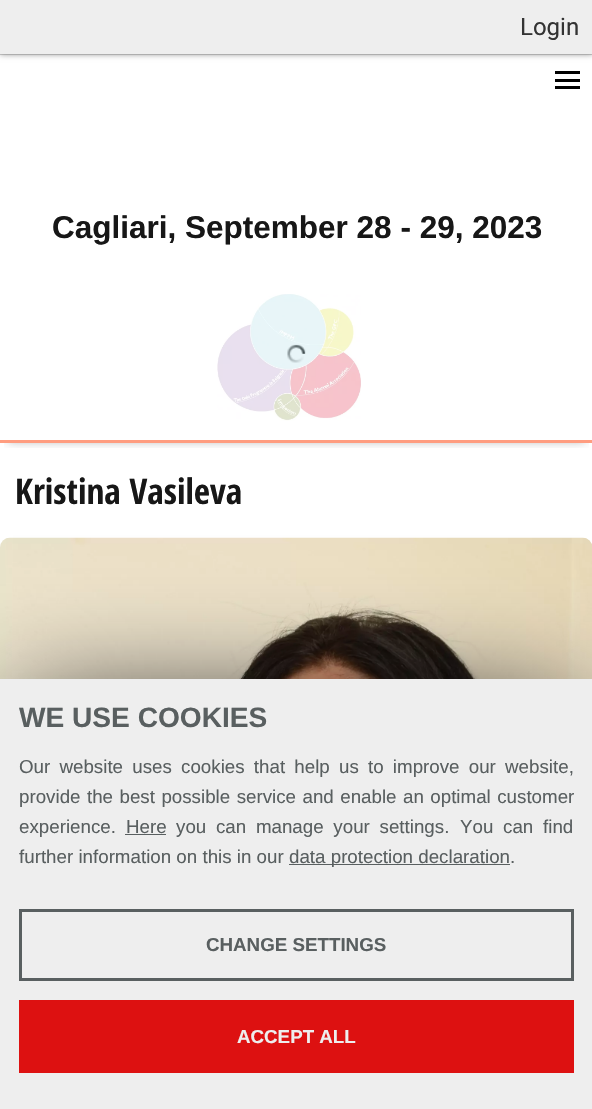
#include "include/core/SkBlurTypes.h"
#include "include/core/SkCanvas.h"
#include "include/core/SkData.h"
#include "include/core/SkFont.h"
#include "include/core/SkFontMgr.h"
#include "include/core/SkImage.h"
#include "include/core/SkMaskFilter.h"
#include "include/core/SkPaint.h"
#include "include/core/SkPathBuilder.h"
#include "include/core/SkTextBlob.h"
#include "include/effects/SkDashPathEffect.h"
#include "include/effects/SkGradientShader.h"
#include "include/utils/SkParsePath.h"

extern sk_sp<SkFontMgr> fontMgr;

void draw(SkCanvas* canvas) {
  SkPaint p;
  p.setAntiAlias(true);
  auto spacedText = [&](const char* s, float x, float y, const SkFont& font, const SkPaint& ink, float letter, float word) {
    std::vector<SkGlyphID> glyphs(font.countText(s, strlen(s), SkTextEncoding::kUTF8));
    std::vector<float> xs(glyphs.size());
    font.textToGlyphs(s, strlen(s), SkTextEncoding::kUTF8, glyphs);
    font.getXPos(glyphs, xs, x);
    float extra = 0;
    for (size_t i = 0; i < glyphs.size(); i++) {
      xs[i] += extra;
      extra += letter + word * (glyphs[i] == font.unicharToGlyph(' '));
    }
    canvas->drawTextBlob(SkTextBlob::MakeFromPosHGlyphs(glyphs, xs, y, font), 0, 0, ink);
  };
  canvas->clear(SK_ColorWHITE);
  p.setColor(SkColorSetRGB(204, 204, 204));
  canvas->drawRect(SkRect::MakeLTRB(0, 54, 592, 55), p);
  p.setColor(SkColorSetRGB(136, 136, 136));
  p.setMaskFilter(SkMaskFilter::MakeBlur(kNormal_SkBlurStyle, 3));
  canvas->drawRect(SkRect::MakeLTRB(0, 0, 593, 54), p);
  p.setMaskFilter(nullptr);
  p.setColor(SkColorSetRGB(238, 238, 238));
  canvas->drawRect(SkRect::MakeLTRB(0, 0, 592, 54), p);
  canvas->save();
  canvas->clipRect(SkRect::MakeLTRB(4, 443, 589, 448));
  p.setColor(SkColorSetARGB(102, 0, 0, 0));
  p.setMaskFilter(SkMaskFilter::MakeBlur(kNormal_SkBlurStyle, 5));
  canvas->drawRect(SkRect::MakeLTRB(8, 68, 585, 440), p);
  p.setMaskFilter(nullptr);
  canvas->restore();
  p.setColor(SkColorSetRGB(255, 157, 128));
  canvas->drawRect(SkRect::MakeLTRB(0, 440, 592, 443), p);
  p.setColor(SK_ColorBLACK);
  canvas->drawRect(SkRect::MakeLTRB(555, 71, 580, 74), p);
  canvas->drawRect(SkRect::MakeLTRB(555, 79, 580, 82), p);
  canvas->drawRect(SkRect::MakeLTRB(555, 86, 580, 89), p);
  canvas->drawImageRect(SkImages::DeferredFromEncodedData(SkData::MakeFromFileName("images/1.png")), SkRect::MakeLTRB(287, 344, 306, 363), SkSamplingOptions());
  canvas->drawImageRect(SkImages::DeferredFromEncodedData(SkData::MakeFromFileName("images/2.png")), SkRect::MakeLTRB(217, 294, 361, 421), SkSamplingOptions());
  canvas->drawImageRect(SkImages::DeferredFromEncodedData(SkData::MakeFromFileName("images/3.png")), SkRect::MakeLTRB(0, 537, 592, 679), SkSamplingOptions());
  p.setMaskFilter(SkMaskFilter::MakeBlur(kNormal_SkBlurStyle, 60.5f));
  canvas->drawRect(SkRect::MakeLTRB(13, 715, 580, 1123), p);
  p.setMaskFilter(nullptr);
  p.setColor(SkColorSetRGB(238, 238, 238));
  canvas->drawRect(SkRect::MakeLTRB(0, 679, 592, 1109), p);
  p.setColor(SkColorSetRGB(89, 95, 96));
  canvas->drawRect(SkRect::MakeLTRB(125, 834, 166, 835), p);
  canvas->drawRect(SkRect::MakeLTRB(289, 864, 510, 865), p);
  p.setStyle(SkPaint::kStroke_Style);
  p.setStrokeWidth(3);
  canvas->drawRect(SkRect::MakeLTRB(20.5f, 910.5f, 572.5f, 979.5f), p);
  p.setStyle(SkPaint::kFill_Style);
  p.setColor(SkColorSetRGB(221, 17, 17));
  canvas->drawRect(SkRect::MakeLTRB(19, 1000, 574, 1073), p);
  SkFont font1(fontMgr->matchFamilyStyle("Roboto", SkFontStyle::Normal()), 24);
  font1.setSubpixel(true);
  p.setColor(SkColorSetRGB(51, 51, 51));
  canvas->drawString("Login", 520, 35, font1, p);
  SkFont font2(fontMgr->matchFamilyStyle("Liberation Sans", SkFontStyle::Bold()), 31.5f);
  font2.setSubpixel(true);
  p.setColor(SkColorSetRGB(23, 23, 23));
  canvas->drawString("Cagliari, September 28 - 29, 2023", 52, 238, font2, p);
  SkFont font3(fontMgr->matchFamilyStyle("Open Sans Condensed", SkFontStyle::Bold()), 35.25f);
  font3.setSubpixel(true);
  canvas->drawString("Kristina Vasileva", 15, 504, font3, p);
  SkFont font4(fontMgr->matchFamilyStyle("Liberation Sans", SkFontStyle::Bold()), 28.1f);
  font4.setSubpixel(true);
  p.setColor(SkColorSetRGB(89, 95, 96));
  canvas->drawString("WE USE COOKIES", 19, 727, font4, p);
  SkFont font5(fontMgr->matchFamilyStyle("Liberation Sans", SkFontStyle::Normal()), 18.75f);
  font5.setSubpixel(true);
  spacedText("Our website uses cookies that help us to improve our website,", 19, 773, font5, p, 0, 4);
  spacedText("provide the best possible service and enable an optimal customer", 19, 803, font5, p, 0, 1.25f);
  canvas->drawString("experience.", 19, 833, font5, p);
  canvas->drawString("Here", 126, 833, font5, p);
  spacedText("you can manage your settings.", 176, 833, font5, p, 0, 4.5f);
  spacedText("You can find", 460, 833, font5, p, 0, 4.5f);
  canvas->drawString("further information on this in our", 19, 863, font5, p);
  canvas->drawString("data protection declaration.", 289, 863, font5, p);
  SkFont font6(fontMgr->matchFamilyStyle("Liberation Sans", SkFontStyle::Bold()), 18.75f);
  font6.setSubpixel(true);
  canvas->drawString("CHANGE SETTINGS", 206, 951, font6, p);
  p.setColor(SkColorSetRGB(238, 238, 238));
  canvas->drawString("ACCEPT ALL", 237, 1043, font6, p);
}
